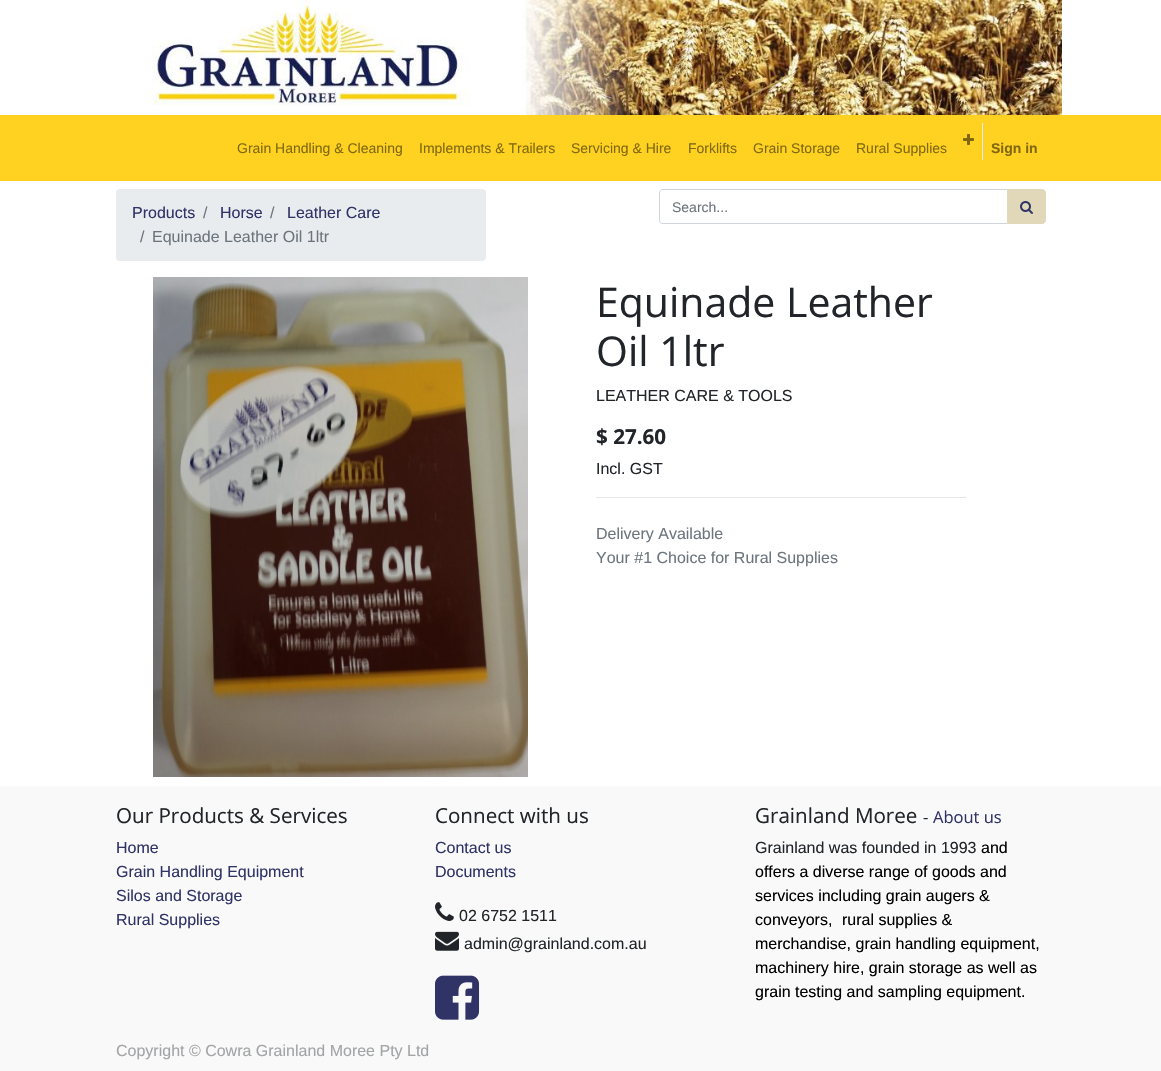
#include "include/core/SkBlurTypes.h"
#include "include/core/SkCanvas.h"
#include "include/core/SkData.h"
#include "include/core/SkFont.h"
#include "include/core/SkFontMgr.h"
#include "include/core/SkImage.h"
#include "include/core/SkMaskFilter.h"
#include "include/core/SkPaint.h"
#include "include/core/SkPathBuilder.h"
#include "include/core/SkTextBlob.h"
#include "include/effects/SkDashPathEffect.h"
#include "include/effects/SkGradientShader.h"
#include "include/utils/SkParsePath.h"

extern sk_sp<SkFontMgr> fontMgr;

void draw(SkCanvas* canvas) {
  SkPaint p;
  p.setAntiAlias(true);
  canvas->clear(SK_ColorWHITE);
  canvas->drawImageRect(SkImages::DeferredFromEncodedData(SkData::MakeFromFileName("images/1.png")), SkRect::MakeLTRB(152, 0, 1062, 115), SkSamplingOptions());
  p.setColor(SkColorSetRGB(255, 209, 33));
  canvas->drawRect(SkRect::MakeLTRB(0, 115, 1161, 181), p);
  canvas->drawImageRect(SkImages::DeferredFromEncodedData(SkData::MakeFromFileName("images/2.png")), SkRect::MakeLTRB(963, 134, 974, 145), SkSamplingOptions());
  p.setColor(SkColorSetRGB(233, 236, 239));
  canvas->drawRect(SkRect::MakeLTRB(982, 123, 983, 160), p);
  canvas->drawRoundRect(SkRect::MakeLTRB(116, 189, 486, 261), 4, 4, p);
  p.setStyle(SkPaint::kStroke_Style);
  p.setStrokeWidth(1);
  p.setColor(SkColorSetRGB(206, 212, 218));
  canvas->drawPath(SkPathBuilder().moveTo(663, 189.5f).lineTo(1007.5f, 189.5f).lineTo(1007.5f, 223.5f).lineTo(663, 223.5f).cubicTo(661, 223.5f, 659.5f, 222, 659.5f, 220).lineTo(659.5f, 193).cubicTo(659.5f, 191, 661, 189.5f, 663, 189.5f).close().detach(), p);
  p.setStyle(SkPaint::kFill_Style);
  p.setColor(SkColorSetRGB(224, 216, 184));
  canvas->drawPath(SkPathBuilder().moveTo(1007.5f, 189.5f).lineTo(1042, 189.5f).cubicTo(1044, 189.5f, 1045.5f, 191, 1045.5f, 193).lineTo(1045.5f, 220).cubicTo(1045.5f, 222, 1044, 223.5f, 1042, 223.5f).lineTo(1007.5f, 223.5f).close().detach(), p);
  p.setStyle(SkPaint::kStroke_Style);
  canvas->drawPath(SkPathBuilder().moveTo(1007.5f, 189.5f).lineTo(1042, 189.5f).cubicTo(1044, 189.5f, 1045.5f, 191, 1045.5f, 193).lineTo(1045.5f, 220).cubicTo(1045.5f, 222, 1044, 223.5f, 1042, 223.5f).lineTo(1007.5f, 223.5f).close().detach(), p);
  canvas->drawImageRect(SkImages::DeferredFromEncodedData(SkData::MakeFromFileName("images/3.png")), SkRect::MakeLTRB(1020, 201, 1033, 214), SkSamplingOptions());
  canvas->drawImageRect(SkImages::DeferredFromEncodedData(SkData::MakeFromFileName("images/4.png")), SkRect::MakeLTRB(153, 277, 528, 777), SkSamplingOptions());
  p.setStyle(SkPaint::kFill_Style);
  p.setColor(SkColorSetRGB(230, 230, 230));
  canvas->drawRect(SkRect::MakeLTRB(596, 497, 966, 498), p);
  p.setColor(SkColorSetRGB(249, 249, 249));
  canvas->drawRect(SkRect::MakeLTRB(0, 786, 1161, 1071), p);
  canvas->drawImageRect(SkImages::DeferredFromEncodedData(SkData::MakeFromFileName("images/5.png")), SkRect::MakeLTRB(435, 902, 454, 921), SkSamplingOptions());
  canvas->drawImageRect(SkImages::DeferredFromEncodedData(SkData::MakeFromFileName("images/6.png")), SkRect::MakeLTRB(435, 931, 459, 951), SkSamplingOptions());
  canvas->drawImageRect(SkImages::DeferredFromEncodedData(SkData::MakeFromFileName("images/7.png")), SkRect::MakeLTRB(435, 975, 480, 1020), SkSamplingOptions());
  SkFont font1(fontMgr->matchFamilyStyle("Liberation Sans", SkFontStyle::Normal()), 14);
  font1.setSubpixel(true);
  p.setColor(SkColorSetRGB(128, 105, 17));
  canvas->drawString("Grain Handling & Cleaning", 237, 153, font1, p);
  canvas->drawString("Implements & Trailers", 419, 153, font1, p);
  canvas->drawString("Servicing & Hire", 571, 153, font1, p);
  canvas->drawString("Forklifts", 688, 153, font1, p);
  canvas->drawString("Grain Storage", 753, 153, font1, p);
  canvas->drawString("Rural Supplies", 856, 153, font1, p);
  SkFont font2(fontMgr->matchFamilyStyle("Liberation Sans", SkFontStyle::Bold()), 14);
  font2.setSubpixel(true);
  canvas->drawString("Sign in", 991, 153, font2, p);
  SkFont font3(fontMgr->matchFamilyStyle("Liberation Sans", SkFontStyle::Normal()), 16);
  font3.setSubpixel(true);
  p.setColor(SkColorSetRGB(47, 51, 102));
  canvas->drawString("Products", 132, 218, font3, p);
  p.setColor(SkColorSetRGB(108, 117, 125));
  canvas->drawString("/", 203, 218, font3, p);
  p.setColor(SkColorSetRGB(47, 51, 102));
  canvas->drawString("Horse", 220, 218, font3, p);
  p.setColor(SkColorSetRGB(108, 117, 125));
  canvas->drawString("/", 270, 218, font3, p);
  p.setColor(SkColorSetRGB(47, 51, 102));
  canvas->drawString("Leather Care", 287, 218, font3, p);
  p.setColor(SkColorSetRGB(108, 117, 125));
  canvas->drawString("/", 140, 242, font3, p);
  canvas->drawString("Equinade Leather Oil 1ltr", 152, 242, font3, p);
  canvas->drawString("Search...", 672, 212, font1, p);
  SkFont font4(fontMgr->matchFamilyStyle("Open Sans", SkFontStyle::Normal()), 41);
  font4.setSubpixel(true);
  p.setColor(SkColorSetRGB(33, 37, 41));
  canvas->drawString("Equinade Leather", 596, 317, font4, p);
  canvas->drawString("Oil 1ltr", 596, 366, font4, p);
  canvas->drawString("LEATHER CARE & TOOLS", 596, 401, font3, p);
  SkFont font5(fontMgr->matchFamilyStyle("Open Sans", SkFontStyle::Bold()), 20.6f);
  font5.setSubpixel(true);
  canvas->drawString("$ 27.60", 596, 444, font5, p);
  canvas->drawString("Incl. GST", 596, 474, font3, p);
  p.setColor(SkColorSetRGB(108, 117, 125));
  canvas->drawString("Delivery Available", 596, 539, font3, p);
  canvas->drawString("Your #1 Choice for Rural Supplies", 596, 563, font3, p);
  SkFont font6(fontMgr->matchFamilyStyle("Open Sans", SkFontStyle::Normal()), 20.6f);
  font6.setSubpixel(true);
  p.setColor(SkColorSetRGB(33, 37, 41));
  canvas->drawString("Our Products & Services", 116, 823, font6, p);
  p.setColor(SkColorSetRGB(47, 51, 102));
  canvas->drawString("Home", 116, 853, font3, p);
  canvas->drawString("Grain Handling Equipment", 116, 877, font3, p);
  canvas->drawString("Silos and Storage", 116, 901, font3, p);
  canvas->drawString("Rural Supplies", 116, 925, font3, p);
  p.setColor(SkColorSetRGB(33, 37, 41));
  canvas->drawString("Connect with us", 435, 823, font6, p);
  p.setColor(SkColorSetRGB(47, 51, 102));
  canvas->drawString("Contact us", 435, 853, font3, p);
  canvas->drawString("Documents", 435, 877, font3, p);
  p.setColor(SkColorSetRGB(33, 37, 41));
  canvas->drawString("02 6752 1511", 459, 921, font3, p);
  canvas->drawString("admin@grainland.com.au", 464, 949, font3, p);
  canvas->drawString("Grainland Moree", 755, 823, font6, p);
  SkFont font7(fontMgr->matchFamilyStyle("Open Sans", SkFontStyle::Normal()), 16.5f);
  font7.setSubpixel(true);
  canvas->drawString("-", 923, 823, font7, p);
  p.setColor(SkColorSetRGB(47, 51, 102));
  canvas->drawString("About us", 933, 823, font7, p);
  p.setColor(SkColorSetRGB(33, 37, 41));
  canvas->drawString("Grainland was founded in 1993", 755, 853, font3, p);
  p.setColor(SK_ColorBLACK);
  canvas->drawString("and", 981, 853, font3, p);
  canvas->drawString("offers a diverse range of goods and", 755, 877, font3, p);
  canvas->drawString("services including grain augers &", 755, 901, font3, p);
  canvas->drawString("conveyors,", 755, 925, font3, p);
  canvas->drawString("rural supplies &", 842, 925, font3, p);
  canvas->drawString("merchandise, grain handling equipment,", 755, 949, font3, p);
  canvas->drawString("machinery hire, grain storage as well as", 755, 973, font3, p);
  canvas->drawString("grain testing and sampling equipment.", 755, 997, font3, p);
  p.setColor(SkColorSetRGB(163, 164, 166));
  canvas->drawString("Copyright © Cowra Grainland Moree Pty Ltd", 116, 1056, font3, p);
}
